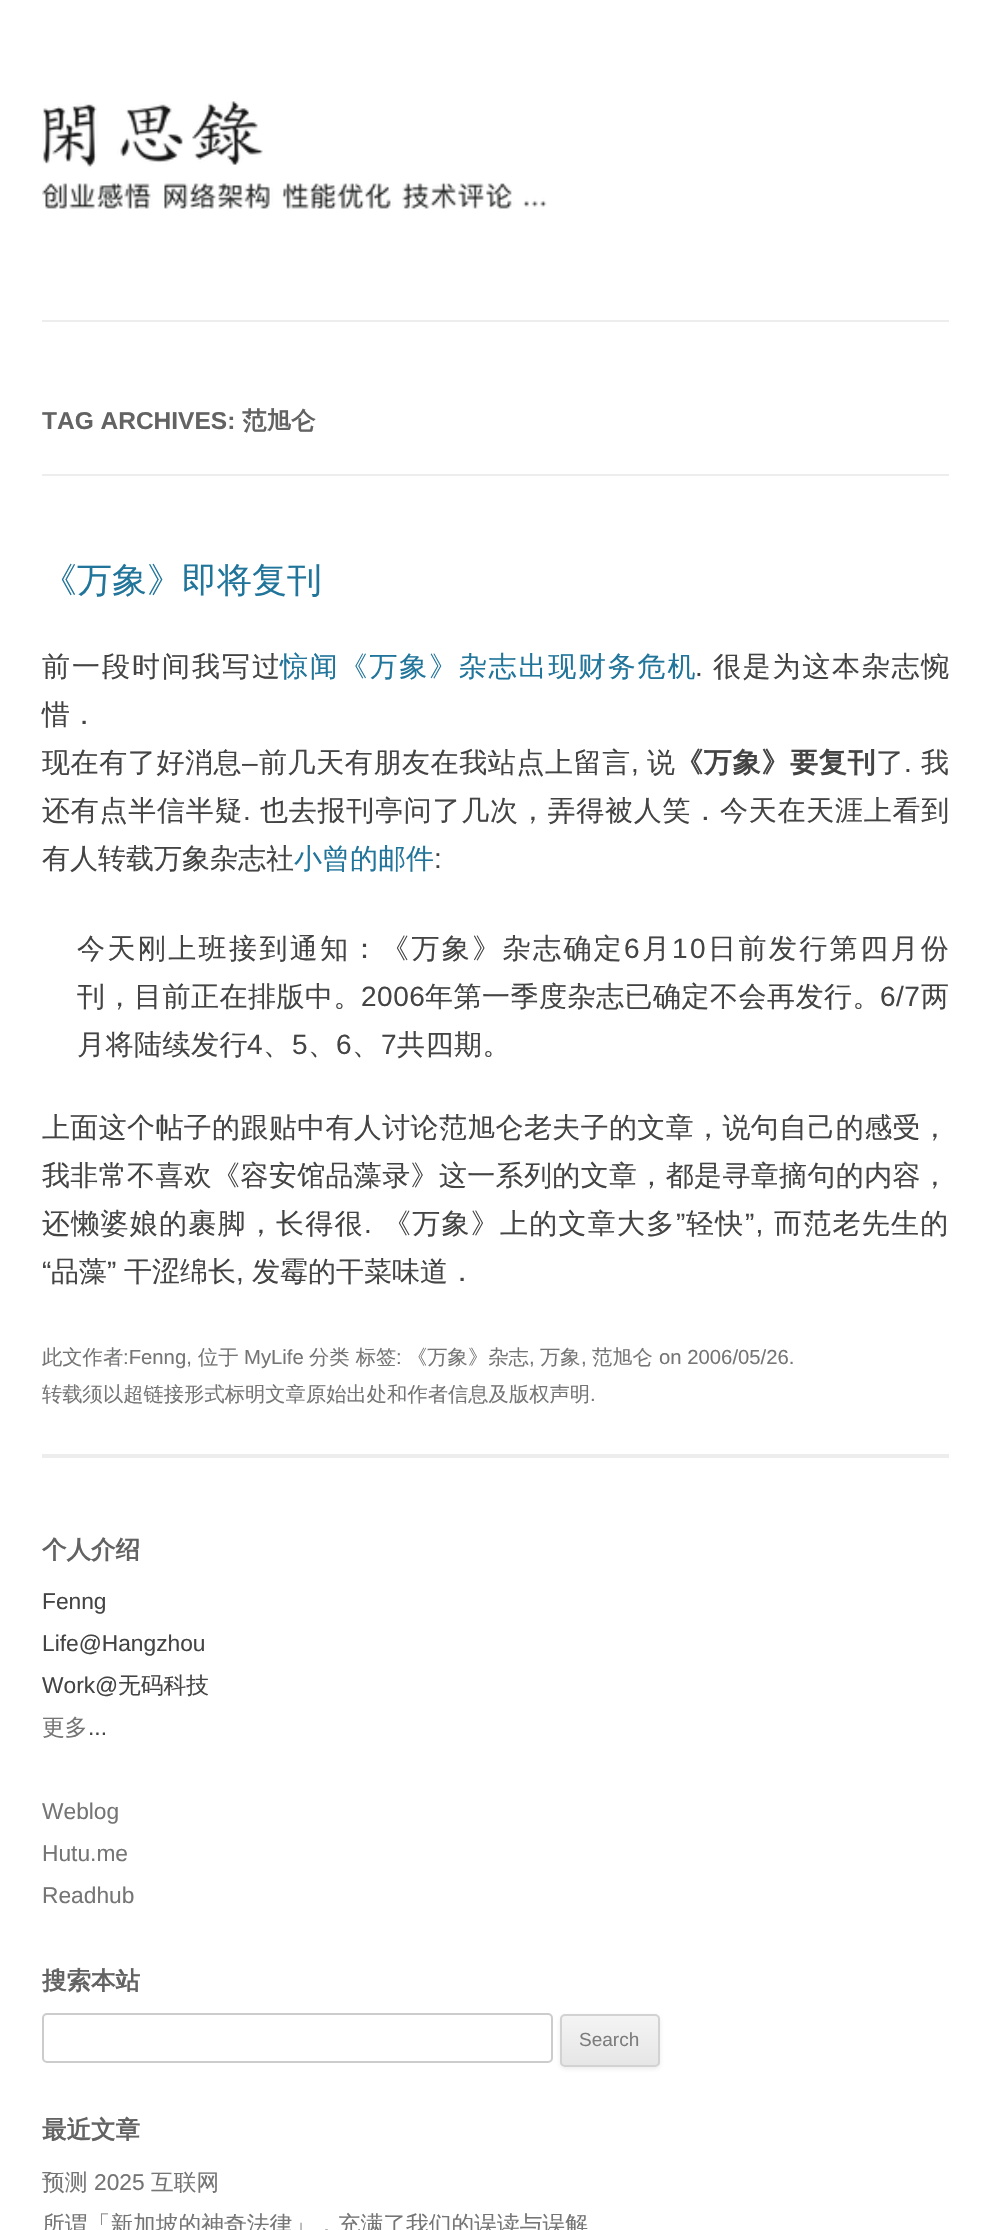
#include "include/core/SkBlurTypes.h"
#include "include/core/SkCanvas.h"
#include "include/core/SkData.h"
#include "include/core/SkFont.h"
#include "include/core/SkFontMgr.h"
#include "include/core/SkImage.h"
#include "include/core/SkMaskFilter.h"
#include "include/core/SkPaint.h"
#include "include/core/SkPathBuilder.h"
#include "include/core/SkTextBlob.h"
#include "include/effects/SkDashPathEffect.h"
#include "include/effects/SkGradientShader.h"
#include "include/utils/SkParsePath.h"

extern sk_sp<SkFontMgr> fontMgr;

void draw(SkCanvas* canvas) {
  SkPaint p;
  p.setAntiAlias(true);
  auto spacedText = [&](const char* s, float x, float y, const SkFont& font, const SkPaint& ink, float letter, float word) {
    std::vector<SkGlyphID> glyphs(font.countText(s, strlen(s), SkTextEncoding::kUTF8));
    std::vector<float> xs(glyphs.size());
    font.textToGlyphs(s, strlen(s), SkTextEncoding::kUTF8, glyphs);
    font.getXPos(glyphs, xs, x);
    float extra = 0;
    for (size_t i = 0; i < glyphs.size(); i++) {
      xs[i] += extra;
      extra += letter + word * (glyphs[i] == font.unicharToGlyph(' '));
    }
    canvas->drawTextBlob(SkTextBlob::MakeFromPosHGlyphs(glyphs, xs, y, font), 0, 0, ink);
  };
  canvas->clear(SK_ColorWHITE);
  canvas->drawImageRect(SkImages::DeferredFromEncodedData(SkData::MakeFromFileName("images/1.png")), SkRect::MakeLTRB(42, 101, 547, 209), SkSamplingOptions());
  p.setColor(SkColorSetRGB(237, 237, 237));
  canvas->drawRect(SkRect::MakeLTRB(42, 320, 949, 322), p);
  canvas->drawRect(SkRect::MakeLTRB(42, 474, 949, 476), p);
  canvas->drawRect(SkRect::MakeLTRB(42, 1454, 949, 1458), p);
  p.setStyle(SkPaint::kStroke_Style);
  p.setStrokeWidth(2);
  p.setColor(SkColorSetRGB(204, 204, 204));
  canvas->drawRoundRect(SkRect::MakeLTRB(43, 2014, 552, 2062), 4, 4, p);
  p.setStyle(SkPaint::kFill_Style);
  p.setColor(SkColorSetARGB(26, 64, 64, 64));
  p.setMaskFilter(SkMaskFilter::MakeBlur(kNormal_SkBlurStyle, 2));
  canvas->drawRoundRect(SkRect::MakeLTRB(560, 2016, 660, 2069), 5, 5, p);
  p.setMaskFilter(nullptr);
  canvas->save();
  canvas->clipPath(SkPathBuilder().moveTo(565, 2014).lineTo(655, 2014).cubicTo(658, 2014, 660, 2016, 660, 2019).lineTo(660, 2062).cubicTo(660, 2065, 658, 2067, 655, 2067).lineTo(565, 2067).cubicTo(562, 2067, 560, 2065, 560, 2062).lineTo(560, 2019).cubicTo(560, 2016, 562, 2014, 565, 2014).close().detach(), true);
  {
    const SkColor colors[] = {SkColorSetRGB(244, 244, 244), SkColorSetRGB(230, 230, 230)};
    const float stops[] = {0, 1};
    const SkPoint ends[] = {{610, 2016}, {610, 2065}};
    p.setShader(SkGradientShader::MakeLinear(ends, colors, stops, 2, SkTileMode::kClamp));
    p.setAlpha(255);
  }
  canvas->drawRect(SkRect::MakeLTRB(560, 2016, 660, 2065), p);
  canvas->restore();
  p.setStyle(SkPaint::kStroke_Style);
  p.setShader(nullptr);
  p.setColor(SkColorSetRGB(210, 210, 210));
  canvas->drawRoundRect(SkRect::MakeLTRB(561, 2015, 659, 2066), 4, 4, p);
  SkFont font1(fontMgr->matchFamilyStyle("Liberation Sans", SkFontStyle::Bold()), 24.5f);
  font1.setSubpixel(true);
  p.setStyle(SkPaint::kFill_Style);
  p.setColor(SkColorSetRGB(99, 99, 99));
  canvas->drawString("TAG ARCHIVES:", 42, 429, font1, p);
  SkFont font2(fontMgr->matchFamilyStyle("WenQuanYi Zen Hei", SkFontStyle::Bold()), 24.5f);
  font2.setSubpixel(true);
  canvas->drawString("范旭仑", 242, 429, font2, p);
  SkFont font3(fontMgr->matchFamilyStyle("WenQuanYi Zen Hei", SkFontStyle(500, SkFontStyle::kNormal_Width, SkFontStyle::kUpright_Slant)), 35);
  font3.setSubpixel(true);
  p.setColor(SkColorSetRGB(33, 117, 155));
  canvas->drawString("《万象》即将复刊", 42, 592, font3, p);
  SkFont font4(fontMgr->matchFamilyStyle("WenQuanYi Zen Hei", SkFontStyle(500, SkFontStyle::kNormal_Width, SkFontStyle::kUpright_Slant)), 28);
  font4.setSubpixel(true);
  p.setColor(SkColorSetRGB(68, 68, 68));
  spacedText("前一段时间我写过", 42, 676, font4, p, 2, 0);
  p.setColor(SkColorSetRGB(33, 117, 155));
  spacedText("惊闻《万象》杂志出现财务危机", 280, 676, font4, p, 1.8f, 0);
  SkFont font5(fontMgr->matchFamilyStyle("Liberation Sans", SkFontStyle::Normal()), 28);
  font5.setSubpixel(true);
  p.setColor(SkColorSetRGB(68, 68, 68));
  canvas->drawString(".", 695, 676, font5, p);
  spacedText("很是为这本杂志惋", 713, 676, font4, p, 1.75f, 0);
  canvas->drawString("惜．", 42, 724, font4, p);
  spacedText("现在有了好消息", 42, 772, font4, p, 0.6f, 0);
  spacedText("–", 242, 772, font5, p, 0.6f, 0);
  spacedText("前几天有朋友在我站点上留言", 259, 772, font4, p, 0.6f, 0);
  spacedText("说", 647, 772, font4, p, 0.6f, 0);
  SkFont font6(fontMgr->matchFamilyStyle("WenQuanYi Zen Hei", SkFontStyle::Bold()), 28);
  font6.setSubpixel(true);
  spacedText("《万象》要复刊", 675, 772, font6, p, 0.75f, 0);
  canvas->drawString("了", 876, 772, font4, p);
  canvas->drawString("我", 921, 772, font4, p);
  spacedText(",", 631, 772, font5, p, 0.6f, 0);
  canvas->drawString(".", 904, 772, font5, p);
  spacedText("还有点半信半疑", 42, 820, font4, p, 0.75f, 0);
  spacedText(".", 243, 820, font5, p, 0.75f, 0);
  spacedText("也去报刊亭问了几次，弄得被人笑．今天在天涯上看到", 260, 820, font4, p, 0.75f, 0);
  canvas->drawString("有人转载万象杂志社", 42, 868, font4, p);
  p.setColor(SkColorSetRGB(33, 117, 155));
  canvas->drawString("小曾的邮件", 294, 868, font4, p);
  p.setColor(SkColorSetRGB(68, 68, 68));
  canvas->drawString(":", 434, 868, font5, p);
  spacedText("今天刚上班接到通知：《万象》杂志确定", 77, 958, font4, p, 2.4f, 0);
  spacedText("6", 624, 958, font5, p, 2.4f, 0);
  spacedText("月", 642, 958, font4, p, 2.4f, 0);
  spacedText("10", 672, 958, font5, p, 2.4f, 0);
  spacedText("日前发行第四月份", 708, 958, font4, p, 2.4f, 0);
  spacedText("刊，目前正在排版中。", 77, 1006, font4, p, 0.5f, 0);
  spacedText("2006", 361, 1006, font5, p, 0.5f, 0);
  spacedText("年第一季度杂志已确定不会再发行。", 425, 1006, font4, p, 0.5f, 0);
  spacedText("6/7", 880, 1006, font5, p, 0.5f, 0);
  spacedText("两", 921, 1006, font4, p, 0.5f, 0);
  spacedText("月将陆续发行", 77, 1054, font4, p, 0.5f, 0);
  spacedText("4", 247, 1054, font5, p, 0.5f, 0);
  spacedText("、", 263, 1054, font4, p, 0.5f, 0);
  spacedText("5", 292, 1054, font5, p, 0.5f, 0);
  spacedText("、", 308, 1054, font4, p, 0.5f, 0);
  spacedText("6", 336, 1054, font5, p, 0.5f, 0);
  spacedText("、", 352, 1054, font4, p, 0.5f, 0);
  spacedText("7", 381, 1054, font5, p, 0.5f, 0);
  spacedText("共四期。", 397, 1054, font4, p, 0.5f, 0);
  spacedText("上面这个帖子的跟贴中有人讨论范旭仑老夫子的文章，说句自己的感受，", 42, 1137, font4, p, 0.35f, 0);
  spacedText("我非常不喜欢《容安馆品藻录》这一系列的文章，都是寻章摘句的内容，", 42, 1185, font4, p, 0.35f, 0);
  spacedText("还懒婆娘的裹脚，长得很", 42, 1233, font4, p, 1.25f, 0);
  spacedText(".", 364, 1233, font5, p, 1.25f, 0);
  spacedText("《万象》上的文章大多", 383, 1233, font4, p, 1.25f, 0);
  spacedText("”", 676, 1233, font5, p, 1.25f, 0);
  spacedText("轻快", 686, 1233, font4, p, 1.25f, 0);
  spacedText("”,", 745, 1233, font5, p, 1.25f, 0);
  spacedText("而范老先生的", 774, 1233, font4, p, 1.25f, 0);
  canvas->drawString("“", 42, 1281, font5, p);
  canvas->drawString("品藻", 51, 1281, font4, p);
  canvas->drawString("”", 107, 1281, font5, p);
  canvas->drawString("干涩绵长", 124, 1281, font4, p);
  canvas->drawString("发霉的干菜味道．", 252, 1281, font4, p);
  canvas->drawString(",", 236, 1281, font5, p);
  SkFont font7(fontMgr->matchFamilyStyle("WenQuanYi Zen Hei", SkFontStyle(500, SkFontStyle::kNormal_Width, SkFontStyle::kUpright_Slant)), 20.3f);
  font7.setSubpixel(true);
  p.setColor(SkColorSetRGB(117, 117, 117));
  canvas->drawString("此文作者", 42, 1364, font7, p);
  SkFont font8(fontMgr->matchFamilyStyle("Liberation Sans", SkFontStyle::Normal()), 20.3f);
  font8.setSubpixel(true);
  canvas->drawString(":Fenng,", 123, 1364, font8, p);
  canvas->drawString("位于", 198, 1364, font7, p);
  canvas->drawString("MyLife", 244, 1364, font8, p);
  canvas->drawString("分类 标签", 309, 1364, font7, p);
  canvas->drawString(":", 396, 1364, font8, p);
  canvas->drawString("《万象》杂志", 407, 1364, font7, p);
  canvas->drawString(",", 529, 1364, font8, p);
  canvas->drawString("万象", 540, 1364, font7, p);
  canvas->drawString(",", 581, 1364, font8, p);
  canvas->drawString("范旭仑", 592, 1364, font7, p);
  canvas->drawString("on 2006/05/26.", 659, 1364, font8, p);
  canvas->drawString("转载须以超链接形式标明文章原始出处和作者信息及版权声明", 42, 1401, font7, p);
  canvas->drawString(".", 590, 1401, font8, p);
  p.setColor(SkColorSetRGB(99, 99, 99));
  canvas->drawString("个人介绍", 42, 1558, font2, p);
  SkFont font9(fontMgr->matchFamilyStyle("Liberation Sans", SkFontStyle::Normal()), 22.75f);
  font9.setSubpixel(true);
  p.setColor(SkColorSetRGB(68, 68, 68));
  canvas->drawString("Fenng", 42, 1609, font9, p);
  canvas->drawString("Life@Hangzhou", 42, 1651, font9, p);
  canvas->drawString("Work@", 42, 1693, font9, p);
  SkFont font10(fontMgr->matchFamilyStyle("WenQuanYi Zen Hei", SkFontStyle(500, SkFontStyle::kNormal_Width, SkFontStyle::kUpright_Slant)), 22.75f);
  font10.setSubpixel(true);
  canvas->drawString("无码科技", 118, 1693, font10, p);
  p.setColor(SkColorSetRGB(117, 117, 117));
  canvas->drawString("更多", 42, 1735, font10, p);
  p.setColor(SkColorSetRGB(68, 68, 68));
  canvas->drawString("...", 88, 1735, font9, p);
  p.setColor(SkColorSetRGB(117, 117, 117));
  canvas->drawString("Weblog", 42, 1819, font9, p);
  canvas->drawString("Hutu.me", 42, 1861, font9, p);
  canvas->drawString("Readhub", 42, 1903, font9, p);
  p.setColor(SkColorSetRGB(99, 99, 99));
  canvas->drawString("搜索本站", 42, 1989, font2, p);
  SkFont font11(fontMgr->matchFamilyStyle("Liberation Sans", SkFontStyle::Normal()), 19);
  font11.setSubpixel(true);
  p.setColor(SkColorSetRGB(124, 124, 124));
  canvas->drawString("Search", 579, 2046, font11, p);
  p.setColor(SkColorSetRGB(99, 99, 99));
  canvas->drawString("最近文章", 42, 2138, font2, p);
  p.setColor(SkColorSetRGB(117, 117, 117));
  canvas->drawString("预测", 42, 2190, font10, p);
  canvas->drawString("2025", 94, 2190, font9, p);
  canvas->drawString("互联网", 151, 2190, font10, p);
  canvas->drawString("所谓「新加坡的神奇法律」，充满了我们的误读与误解", 42, 2232, font10, p);
}
